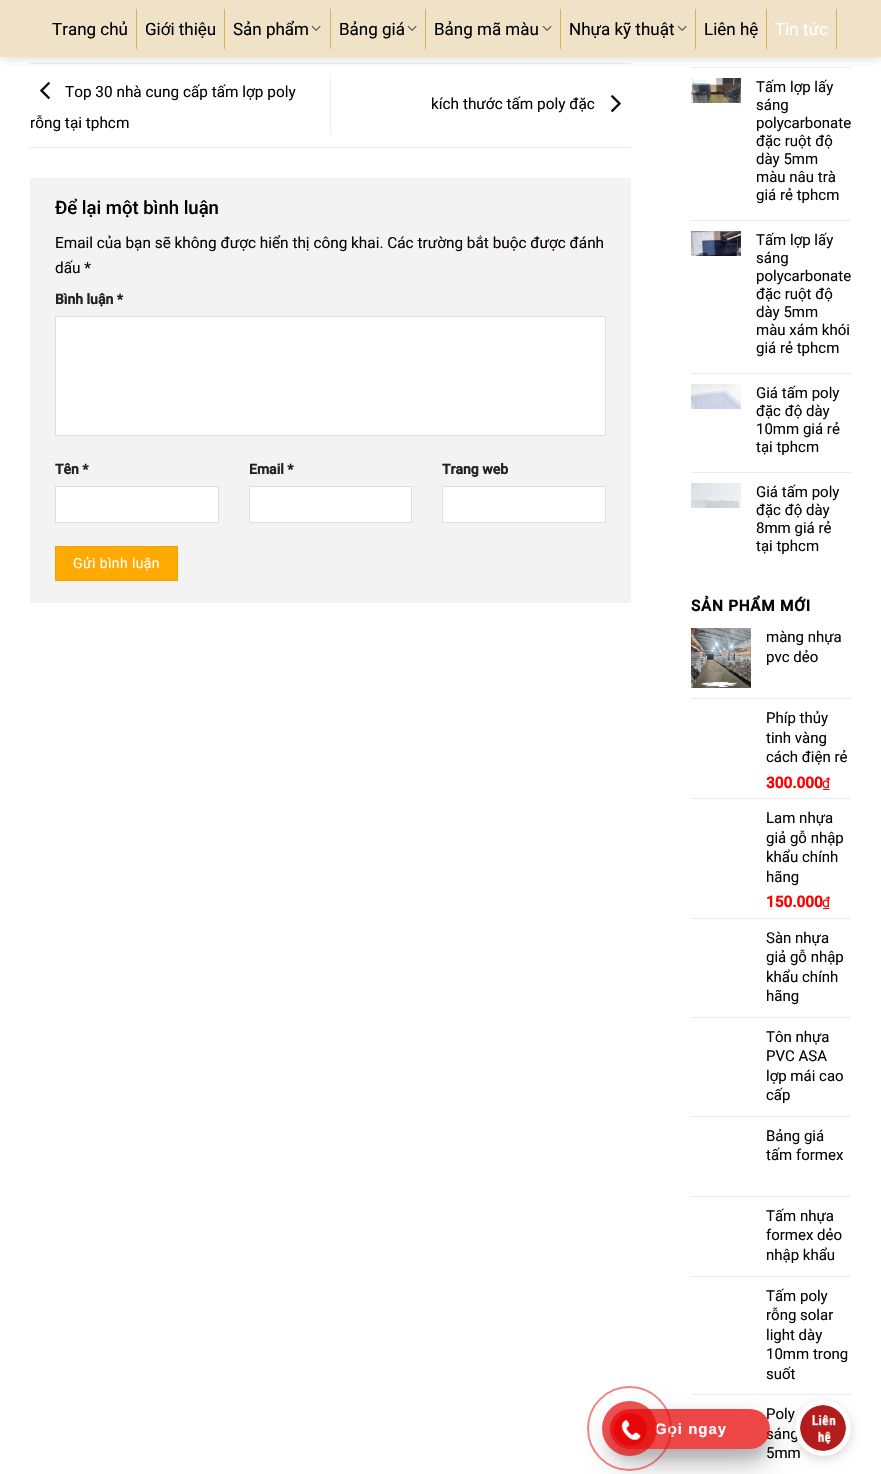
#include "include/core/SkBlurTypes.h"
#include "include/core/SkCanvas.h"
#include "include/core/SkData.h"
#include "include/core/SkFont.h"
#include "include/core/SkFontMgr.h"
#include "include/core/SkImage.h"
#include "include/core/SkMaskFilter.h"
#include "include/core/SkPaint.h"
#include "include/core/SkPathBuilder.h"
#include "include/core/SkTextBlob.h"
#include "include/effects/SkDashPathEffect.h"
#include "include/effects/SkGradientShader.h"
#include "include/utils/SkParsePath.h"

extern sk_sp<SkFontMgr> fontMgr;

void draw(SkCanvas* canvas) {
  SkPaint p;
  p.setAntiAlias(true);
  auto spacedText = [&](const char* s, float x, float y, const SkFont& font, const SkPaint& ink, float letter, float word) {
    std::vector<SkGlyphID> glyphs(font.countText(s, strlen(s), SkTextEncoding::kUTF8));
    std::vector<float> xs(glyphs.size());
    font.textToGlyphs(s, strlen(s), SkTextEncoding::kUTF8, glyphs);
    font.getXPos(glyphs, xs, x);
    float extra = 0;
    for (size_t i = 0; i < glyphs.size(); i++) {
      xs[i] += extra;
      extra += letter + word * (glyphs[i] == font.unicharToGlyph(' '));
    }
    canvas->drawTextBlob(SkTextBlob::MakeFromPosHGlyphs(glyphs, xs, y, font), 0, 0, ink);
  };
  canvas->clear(SK_ColorWHITE);
  p.setColor(SkColorSetRGB(236, 236, 236));
  canvas->drawRect(SkRect::MakeLTRB(30, 63, 631, 64), p);
  canvas->drawRect(SkRect::MakeLTRB(691, 67, 851, 68), p);
  p.setColor(SkColorSetARGB(38, 0, 0, 0));
  p.setMaskFilter(SkMaskFilter::MakeBlur(kNormal_SkBlurStyle, 5));
  canvas->drawRect(SkRect::MakeLTRB(1, 1, 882, 58), p);
  p.setMaskFilter(nullptr);
  p.setColor(SkColorSetRGB(240, 226, 199));
  canvas->drawRect(SkRect::MakeLTRB(0, 0, 881, 57), p);
  p.setColor(SkColorSetRGB(214, 178, 87));
  canvas->drawRect(SkRect::MakeLTRB(136, 9, 137, 49), p);
  canvas->drawRect(SkRect::MakeLTRB(224, 9, 225, 49), p);
  canvas->drawRect(SkRect::MakeLTRB(330, 9, 331, 49), p);
  canvas->drawImageRect(SkImages::DeferredFromEncodedData(SkData::MakeFromFileName("images/1.png")), SkRect::MakeLTRB(311, 25, 321, 31), SkSamplingOptions());
  canvas->drawRect(SkRect::MakeLTRB(425, 9, 426, 49), p);
  canvas->drawImageRect(SkImages::DeferredFromEncodedData(SkData::MakeFromFileName("images/1.png")), SkRect::MakeLTRB(407, 25, 417, 31), SkSamplingOptions());
  canvas->drawRect(SkRect::MakeLTRB(560, 9, 561, 49), p);
  canvas->drawImageRect(SkImages::DeferredFromEncodedData(SkData::MakeFromFileName("images/1.png")), SkRect::MakeLTRB(542, 25, 552, 31), SkSamplingOptions());
  canvas->drawRect(SkRect::MakeLTRB(695, 9, 696, 49), p);
  canvas->drawImageRect(SkImages::DeferredFromEncodedData(SkData::MakeFromFileName("images/1.png")), SkRect::MakeLTRB(677, 25, 687, 31), SkSamplingOptions());
  canvas->drawRect(SkRect::MakeLTRB(766, 9, 767, 49), p);
  canvas->drawRect(SkRect::MakeLTRB(836, 9, 837, 49), p);
  p.setColor(SkColorSetRGB(236, 236, 236));
  canvas->drawRect(SkRect::MakeLTRB(30, 147, 631, 148), p);
  canvas->drawImageRect(SkImages::DeferredFromEncodedData(SkData::MakeFromFileName("images/2.png")), SkRect::MakeLTRB(40, 82, 50, 100), SkSamplingOptions());
  canvas->drawRect(SkRect::MakeLTRB(330, 76, 331, 134), p);
  canvas->drawImageRect(SkImages::DeferredFromEncodedData(SkData::MakeFromFileName("images/3.png")), SkRect::MakeLTRB(611, 95, 621, 113), SkSamplingOptions());
  p.setColor(SkColorSetRGB(243, 243, 243));
  canvas->drawRect(SkRect::MakeLTRB(30, 178, 631, 603), p);
  p.setColor(SK_ColorWHITE);
  canvas->drawRect(SkRect::MakeLTRB(55.5f, 316.5f, 605.5f, 435.5f), p);
  p.setStyle(SkPaint::kStroke_Style);
  p.setStrokeWidth(1);
  p.setColor(SkColorSetRGB(221, 221, 221));
  canvas->drawRect(SkRect::MakeLTRB(55.5f, 316.5f, 605.5f, 435.5f), p);
  p.setStyle(SkPaint::kFill_Style);
  p.setColor(SK_ColorWHITE);
  canvas->drawRect(SkRect::MakeLTRB(55.5f, 486.5f, 218.5f, 522.5f), p);
  p.setStyle(SkPaint::kStroke_Style);
  p.setColor(SkColorSetRGB(221, 221, 221));
  canvas->drawRect(SkRect::MakeLTRB(55.5f, 486.5f, 218.5f, 522.5f), p);
  p.setStyle(SkPaint::kFill_Style);
  p.setColor(SK_ColorWHITE);
  canvas->drawRect(SkRect::MakeLTRB(249.5f, 486.5f, 411.5f, 522.5f), p);
  p.setStyle(SkPaint::kStroke_Style);
  p.setColor(SkColorSetRGB(221, 221, 221));
  canvas->drawRect(SkRect::MakeLTRB(249.5f, 486.5f, 411.5f, 522.5f), p);
  p.setStyle(SkPaint::kFill_Style);
  p.setColor(SK_ColorWHITE);
  canvas->drawRect(SkRect::MakeLTRB(442.5f, 486.5f, 605.5f, 522.5f), p);
  p.setStyle(SkPaint::kStroke_Style);
  p.setColor(SkColorSetRGB(221, 221, 221));
  canvas->drawRect(SkRect::MakeLTRB(442.5f, 486.5f, 605.5f, 522.5f), p);
  p.setStyle(SkPaint::kFill_Style);
  p.setColor(SkColorSetRGB(255, 170, 0));
  canvas->drawRect(SkRect::MakeLTRB(55.5f, 546.5f, 177.5f, 580.5f), p);
  p.setStyle(SkPaint::kStroke_Style);
  p.setColor(SkColorSetRGB(242, 162, 0));
  canvas->drawRect(SkRect::MakeLTRB(55.5f, 546.5f, 177.5f, 580.5f), p);
  canvas->drawImageRect(SkImages::DeferredFromEncodedData(SkData::MakeFromFileName("images/4.png")), SkRect::MakeLTRB(691, 78, 741, 103), SkSamplingOptions());
  p.setStyle(SkPaint::kFill_Style);
  p.setColor(SkColorSetRGB(236, 236, 236));
  canvas->drawRect(SkRect::MakeLTRB(691, 220, 851, 221), p);
  canvas->drawImageRect(SkImages::DeferredFromEncodedData(SkData::MakeFromFileName("images/5.png")), SkRect::MakeLTRB(691, 231, 741, 256), SkSamplingOptions());
  canvas->drawRect(SkRect::MakeLTRB(691, 373, 851, 374), p);
  canvas->drawImageRect(SkImages::DeferredFromEncodedData(SkData::MakeFromFileName("images/6.png")), SkRect::MakeLTRB(691, 384, 741, 409), SkSamplingOptions());
  canvas->drawRect(SkRect::MakeLTRB(691, 472, 851, 473), p);
  canvas->drawImageRect(SkImages::DeferredFromEncodedData(SkData::MakeFromFileName("images/7.png")), SkRect::MakeLTRB(691, 483, 741, 508), SkSamplingOptions());
  canvas->drawImageRect(SkImages::DeferredFromEncodedData(SkData::MakeFromFileName("images/8.png")), SkRect::MakeLTRB(691, 628, 751, 688), SkSamplingOptions());
  canvas->drawRect(SkRect::MakeLTRB(691, 698, 851, 699), p);
  canvas->drawRect(SkRect::MakeLTRB(691, 798, 851, 799), p);
  canvas->drawRect(SkRect::MakeLTRB(691, 918, 851, 919), p);
  canvas->drawRect(SkRect::MakeLTRB(691, 1017, 851, 1018), p);
  canvas->drawRect(SkRect::MakeLTRB(691, 1116, 851, 1117), p);
  canvas->drawRect(SkRect::MakeLTRB(691, 1196, 851, 1197), p);
  canvas->drawRect(SkRect::MakeLTRB(691, 1276, 851, 1277), p);
  canvas->drawRect(SkRect::MakeLTRB(691, 1394, 851, 1395), p);
  canvas->save();
  canvas->clipPath(SkPathBuilder(SkPathFillType::kEvenOdd).moveTo(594, 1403).lineTo(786, 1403).lineTo(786, 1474).lineTo(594, 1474).close().moveTo(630, 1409).lineTo(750, 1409).cubicTo(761, 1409, 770, 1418, 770, 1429).cubicTo(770, 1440, 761, 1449, 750, 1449).lineTo(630, 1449).cubicTo(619, 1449, 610, 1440, 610, 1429).cubicTo(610, 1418, 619, 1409, 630, 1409).close().detach(), true);
  p.setColor(SkColorSetARGB(26, 0, 0, 0));
  p.setMaskFilter(SkMaskFilter::MakeBlur(kNormal_SkBlurStyle, 5));
  canvas->drawRoundRect(SkRect::MakeLTRB(610, 1419, 770, 1459), 20, 20, p);
  p.setMaskFilter(nullptr);
  canvas->restore();
  canvas->save();
  canvas->clipPath(SkPathBuilder(SkPathFillType::kEvenOdd).moveTo(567, 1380).lineTo(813, 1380).lineTo(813, 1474).lineTo(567, 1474).close().moveTo(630, 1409).lineTo(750, 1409).cubicTo(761, 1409, 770, 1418, 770, 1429).cubicTo(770, 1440, 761, 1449, 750, 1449).lineTo(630, 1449).cubicTo(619, 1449, 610, 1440, 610, 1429).cubicTo(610, 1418, 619, 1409, 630, 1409).close().detach(), true);
  p.setColor(SkColorSetARGB(64, 0, 0, 0));
  p.setMaskFilter(SkMaskFilter::MakeBlur(kNormal_SkBlurStyle, 14));
  canvas->drawRoundRect(SkRect::MakeLTRB(610, 1423, 770, 1463), 20, 20, p);
  p.setMaskFilter(nullptr);
  canvas->restore();
  p.setColor(SkColorSetARGB(20, 0, 0, 0));
  p.setMaskFilter(SkMaskFilter::MakeBlur(kNormal_SkBlurStyle, 5));
  canvas->drawRoundRect(SkRect::MakeLTRB(795, 1403, 851, 1459), 28, 28, p);
  p.setMaskFilter(nullptr);
  p.setMaskFilter(SkMaskFilter::MakeBlur(kNormal_SkBlurStyle, 5));
  canvas->drawRoundRect(SkRect::MakeLTRB(795, 1403, 851, 1459), 28, 28, p);
  p.setMaskFilter(nullptr);
  SkFont font1(fontMgr->matchFamilyStyle("Roboto", SkFontStyle::Normal()), 17);
  font1.setSubpixel(true);
  p.setColor(SK_ColorBLACK);
  canvas->drawString("Trang chủ", 52, 35, font1, p);
  canvas->drawString("Giới thiệu", 145, 35, font1, p);
  canvas->drawString("Sản phẩm", 233, 35, font1, p);
  canvas->drawString("Bảng giá", 339, 35, font1, p);
  canvas->drawString("Bảng mã màu", 434, 35, font1, p);
  canvas->drawString("Nhựa kỹ thuật", 569, 35, font1, p);
  canvas->drawString("Liên hệ", 704, 35, font1, p);
  p.setColor(SK_ColorWHITE);
  canvas->drawString("Tin tức", 775, 35, font1, p);
  SkFont font2(fontMgr->matchFamilyStyle("Roboto", SkFontStyle::Normal()), 15.35f);
  font2.setSubpixel(true);
  p.setColor(SkColorSetRGB(10, 5, 6));
  canvas->drawString("Top 30 nhà cung cấp tấm lợp poly", 65, 97, font2, p);
  canvas->drawString("rỗng tại tphcm", 30, 128, font2, p);
  canvas->drawString("kích thước tấm poly đặc", 431, 109, font2, p);
  SkFont font3(fontMgr->matchFamilyStyle("Roboto", SkFontStyle(500, SkFontStyle::kNormal_Width, SkFontStyle::kUpright_Slant)), 18.5f);
  font3.setSubpixel(true);
  p.setColor(SK_ColorBLACK);
  canvas->drawString("Để lại một bình luận", 55, 214, font3, p);
  p.setColor(SkColorSetRGB(10, 5, 6));
  canvas->drawString("Email của bạn sẽ không được hiển thị công khai. Các trường bắt buộc được đánh", 55, 248, font2, p);
  canvas->drawString("dấu *", 55, 273, font2, p);
  SkFont font4(fontMgr->matchFamilyStyle("Roboto", SkFontStyle::Bold()), 14);
  font4.setSubpixel(true);
  p.setColor(SkColorSetRGB(34, 34, 34));
  canvas->drawString("Bình luận *", 55, 304, font4, p);
  canvas->drawString("Tên *", 55, 474, font4, p);
  canvas->drawString("Email *", 249, 474, font4, p);
  canvas->drawString("Trang web", 442, 474, font4, p);
  SkFont font5(fontMgr->matchFamilyStyle("Roboto", SkFontStyle::Normal()), 14);
  font5.setSubpixel(true);
  p.setColor(SK_ColorWHITE);
  spacedText("Gửi bình luận", 73, 568, font5, p, 0.4f, 0);
  SkFont font6(fontMgr->matchFamilyStyle("Roboto", SkFontStyle::Normal()), 15);
  font6.setSubpixel(true);
  p.setColor(SkColorSetRGB(10, 5, 6));
  canvas->drawString("Tấm lợp lấy", 756, 92, font6, p);
  canvas->drawString("sáng", 756, 110, font6, p);
  canvas->drawString("polycarbonate", 756, 128, font6, p);
  canvas->drawString("đặc ruột độ", 756, 146, font6, p);
  canvas->drawString("dày 5mm", 756, 164, font6, p);
  canvas->drawString("màu nâu trà", 756, 182, font6, p);
  canvas->drawString("giá rẻ tphcm", 756, 200, font6, p);
  canvas->drawString("Tấm lợp lấy", 756, 245, font6, p);
  canvas->drawString("sáng", 756, 263, font6, p);
  canvas->drawString("polycarbonate", 756, 281, font6, p);
  canvas->drawString("đặc ruột độ", 756, 299, font6, p);
  canvas->drawString("dày 5mm", 756, 317, font6, p);
  canvas->drawString("màu xám khói", 756, 335, font6, p);
  canvas->drawString("giá rẻ tphcm", 756, 353, font6, p);
  canvas->drawString("Giá tấm poly", 756, 398, font6, p);
  canvas->drawString("đặc độ dày", 756, 416, font6, p);
  canvas->drawString("10mm giá rẻ", 756, 434, font6, p);
  canvas->drawString("tại tphcm", 756, 452, font6, p);
  canvas->drawString("Giá tấm poly", 756, 497, font6, p);
  canvas->drawString("đặc độ dày", 756, 515, font6, p);
  canvas->drawString("8mm giá rẻ", 756, 533, font6, p);
  canvas->drawString("tại tphcm", 756, 551, font6, p);
  SkFont font7(fontMgr->matchFamilyStyle("Roboto", SkFontStyle::Bold()), 15.35f);
  font7.setSubpixel(true);
  spacedText("SẢN PHẨM MỚI", 691, 611, font7, p, 0.75f, 0);
  canvas->drawString("màng nhựa", 766, 642, font6, p);
  canvas->drawString("pvc dẻo", 766, 662, font6, p);
  canvas->drawString("Phíp thủy", 766, 723, font6, p);
  canvas->drawString("tinh vàng", 766, 743, font6, p);
  canvas->drawString("cách điện rẻ", 766, 762, font6, p);
  p.setColor(SkColorSetRGB(255, 0, 0));
  canvas->drawString("300.000", 766, 788, font7, p);
  canvas->drawString("₫", 822, 788, font5, p);
  p.setColor(SkColorSetRGB(10, 5, 6));
  canvas->drawString("Lam nhựa", 766, 823, font6, p);
  canvas->drawString("giả gỗ nhập", 766, 843, font6, p);
  canvas->drawString("khẩu chính", 766, 862, font6, p);
  canvas->drawString("hãng", 766, 882, font6, p);
  p.setColor(SkColorSetRGB(255, 0, 0));
  canvas->drawString("150.000", 766, 907, font7, p);
  canvas->drawString("₫", 822, 907, font5, p);
  p.setColor(SkColorSetRGB(10, 5, 6));
  canvas->drawString("Sàn nhựa", 766, 943, font6, p);
  canvas->drawString("giả gỗ nhập", 766, 962, font6, p);
  canvas->drawString("khẩu chính", 766, 982, font6, p);
  canvas->drawString("hãng", 766, 1001, font6, p);
  canvas->drawString("Tôn nhựa", 766, 1042, font6, p);
  canvas->drawString("PVC ASA", 766, 1061, font6, p);
  canvas->drawString("lợp mái cao", 766, 1081, font6, p);
  canvas->drawString("cấp", 766, 1100, font6, p);
  canvas->drawString("Bảng giá", 766, 1141, font6, p);
  canvas->drawString("tấm formex", 766, 1160, font6, p);
  canvas->drawString("Tấm nhựa", 766, 1221, font6, p);
  canvas->drawString("formex dẻo", 766, 1240, font6, p);
  canvas->drawString("nhập khẩu", 766, 1260, font6, p);
  canvas->drawString("Tấm poly", 766, 1301, font6, p);
  canvas->drawString("rỗng solar", 766, 1320, font6, p);
  canvas->drawString("light dày", 766, 1340, font6, p);
  canvas->drawString("10mm trong", 766, 1359, font6, p);
  canvas->drawString("suốt", 766, 1379, font6, p);
  canvas->drawString("Poly", 766, 1419, font6, p);
  canvas->drawString("sáng", 766, 1439, font6, p);
  canvas->drawString("5mm", 766, 1458, font6, p);
  p.setColor(SkColorSetARGB(191, 230, 8, 8));
  canvas->drawRoundRect(SkRect::MakeLTRB(610, 1409, 770, 1449), 20, 20, p);
  SkFont font8(fontMgr->matchFamilyStyle("Liberation Sans", SkFontStyle::Bold()), 15);
  font8.setSubpixel(true);
  p.setColor(SK_ColorWHITE);
  spacedText("Gọi ngay", 655, 1434, font8, p, 1, 0);
  p.setStyle(SkPaint::kStroke_Style);
  p.setStrokeWidth(2);
  p.setColor(SkColorSetARGB(128, 230, 8, 8));
  canvas->drawCircle(629.5f, 1428.5f, 41.5f, p);
  p.setStyle(SkPaint::kFill_Style);
  p.setColor(SkColorSetARGB(179, 230, 8, 8));
  canvas->drawCircle(629.5f, 1428.5f, 27.5f, p);
  p.setColor(SkColorSetRGB(230, 8, 8));
  canvas->drawCircle(630.5f, 1429.5f, 16.5f, p);
  canvas->drawImageRect(SkImages::DeferredFromEncodedData(SkData::MakeFromFileName("images/9.png")), SkRect::MakeLTRB(621, 1419, 641, 1440), SkSamplingOptions());
  p.setColor(SK_ColorWHITE);
  canvas->drawCircle(823, 1428, 25.5f, p);
  p.setStyle(SkPaint::kStroke_Style);
  p.setStrokeWidth(5);
  canvas->drawCircle(823, 1428, 25.5f, p);
  canvas->drawImageRect(SkImages::DeferredFromEncodedData(SkData::MakeFromFileName("images/10.png")), SkRect::MakeLTRB(800, 1405, 846, 1451), SkSamplingOptions());
}
